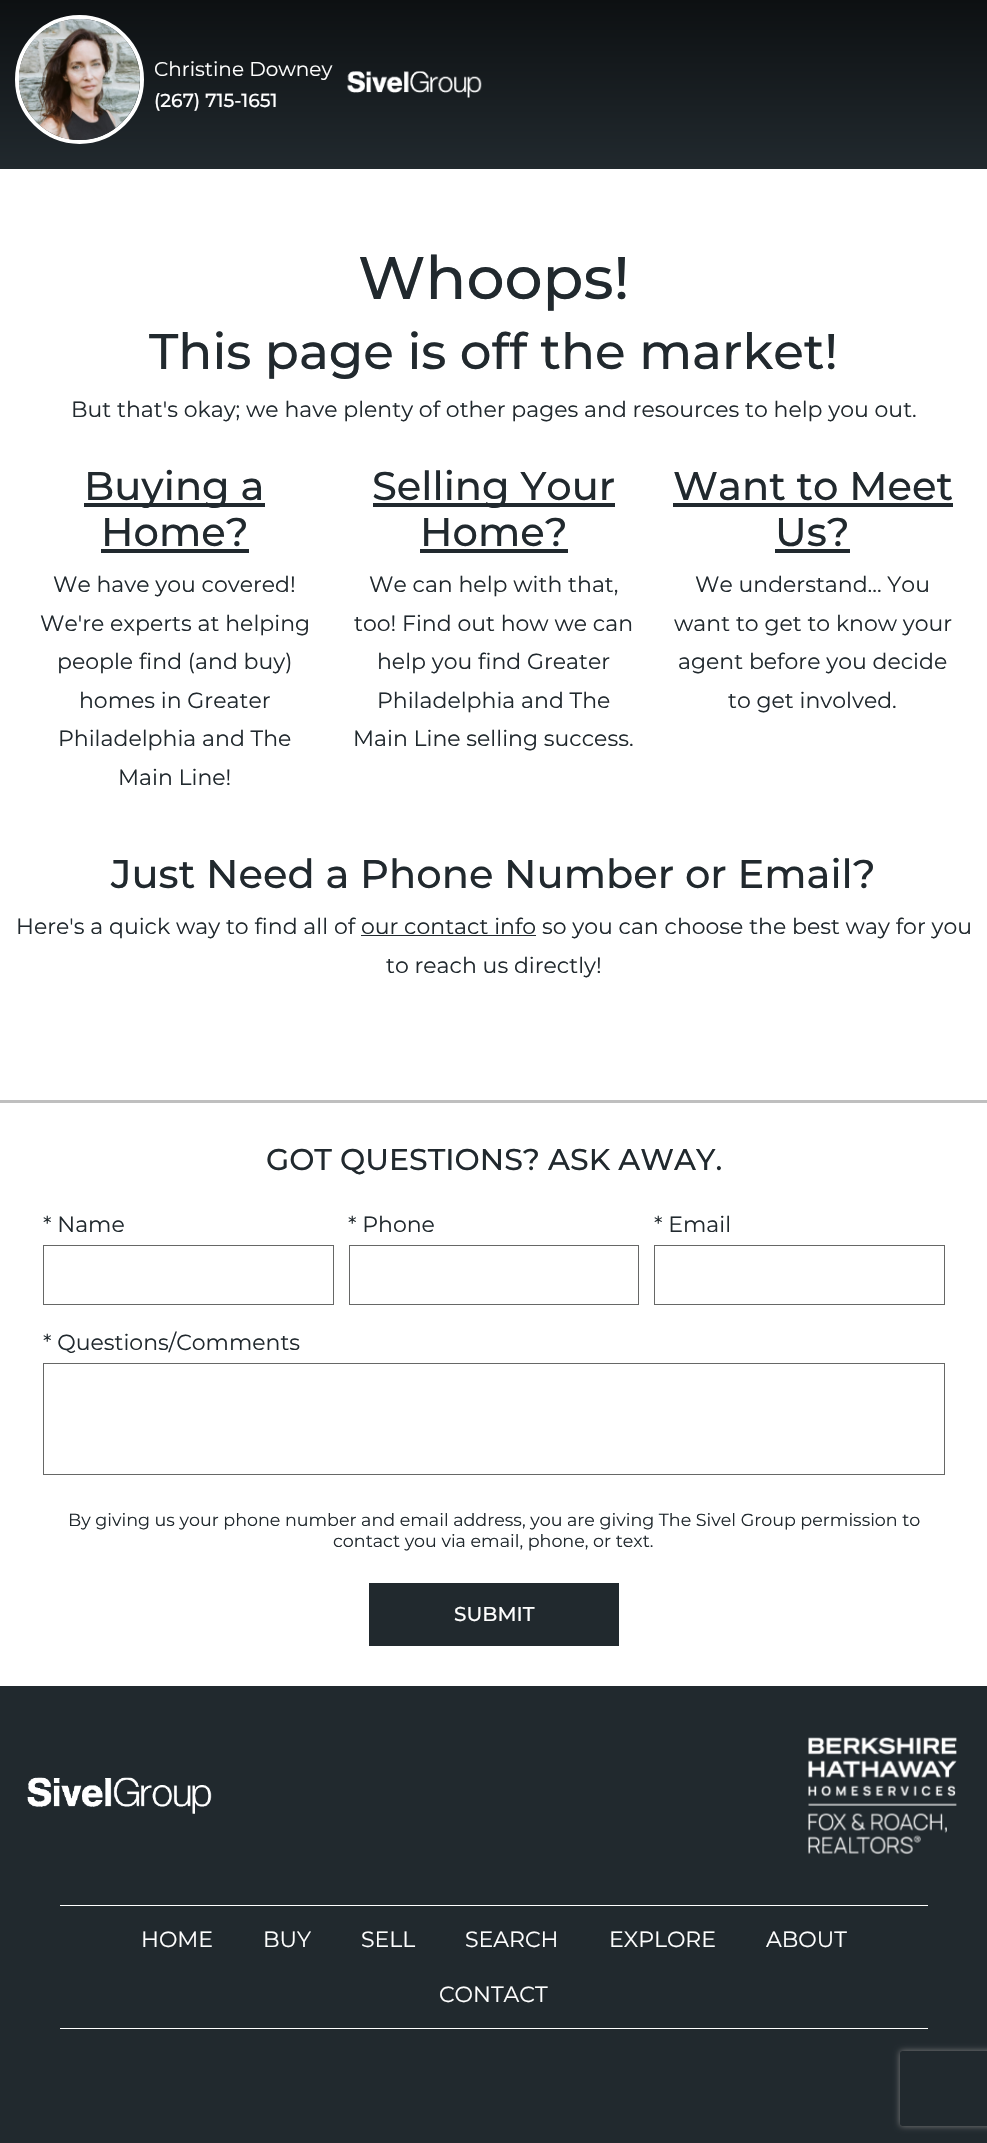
#include "include/core/SkBlurTypes.h"
#include "include/core/SkCanvas.h"
#include "include/core/SkData.h"
#include "include/core/SkFont.h"
#include "include/core/SkFontMgr.h"
#include "include/core/SkImage.h"
#include "include/core/SkMaskFilter.h"
#include "include/core/SkPaint.h"
#include "include/core/SkPathBuilder.h"
#include "include/core/SkTextBlob.h"
#include "include/effects/SkDashPathEffect.h"
#include "include/effects/SkGradientShader.h"
#include "include/utils/SkParsePath.h"

extern sk_sp<SkFontMgr> fontMgr;

void draw(SkCanvas* canvas) {
  SkPaint p;
  p.setAntiAlias(true);
  canvas->clear(SK_ColorWHITE);
  {
    const SkColor colors[] = {SkColorSetRGB(13, 16, 18), SkColorSetRGB(33, 41, 46)};
    const float stops[] = {0, 1};
    const SkPoint ends[] = {{494, 0}, {494, 169}};
    p.setShader(SkGradientShader::MakeLinear(ends, colors, stops, 2, SkTileMode::kClamp));
    p.setAlpha(255);
  }
  canvas->drawRect(SkRect::MakeLTRB(0, 0, 987, 169), p);
  p.setStyle(SkPaint::kStroke_Style);
  p.setStrokeWidth(4);
  p.setShader(nullptr);
  p.setColor(SK_ColorWHITE);
  canvas->drawCircle(79.5f, 79.5f, 62.5f, p);
  canvas->drawImageRect(SkImages::DeferredFromEncodedData(SkData::MakeFromFileName("images/1.png")), SkRect::MakeLTRB(18, 19, 140, 140), SkSamplingOptions());
  canvas->drawImageRect(SkImages::DeferredFromEncodedData(SkData::MakeFromFileName("images/2.png")), SkRect::MakeLTRB(347, 71, 482, 98), SkSamplingOptions());
  p.setStyle(SkPaint::kFill_Style);
  p.setColor(SkColorSetRGB(33, 41, 46));
  canvas->drawRect(SkRect::MakeLTRB(84, 503, 265, 507), p);
  canvas->drawRect(SkRect::MakeLTRB(101, 549, 249, 553), p);
  canvas->drawRect(SkRect::MakeLTRB(373, 503, 615, 507), p);
  canvas->drawRect(SkRect::MakeLTRB(420, 549, 568, 553), p);
  canvas->drawRect(SkRect::MakeLTRB(673, 503, 953, 507), p);
  canvas->drawRect(SkRect::MakeLTRB(775, 549, 850, 553), p);
  canvas->drawRect(SkRect::MakeLTRB(361, 935, 536, 936), p);
  p.setColor(SkColorSetRGB(191, 191, 191));
  canvas->drawRect(SkRect::MakeLTRB(0, 1100, 987, 1103), p);
  p.setStyle(SkPaint::kStroke_Style);
  p.setStrokeWidth(1);
  p.setColor(SkColorSetRGB(102, 103, 102));
  canvas->drawRect(SkRect::MakeLTRB(43.5f, 1245.5f, 333.5f, 1304.5f), p);
  canvas->drawRect(SkRect::MakeLTRB(349.5f, 1245.5f, 638.5f, 1304.5f), p);
  canvas->drawRect(SkRect::MakeLTRB(654.5f, 1245.5f, 944.5f, 1304.5f), p);
  canvas->drawRect(SkRect::MakeLTRB(43.5f, 1363.5f, 944.5f, 1474.5f), p);
  p.setStyle(SkPaint::kFill_Style);
  p.setColor(SkColorSetRGB(33, 41, 46));
  canvas->drawRect(SkRect::MakeLTRB(369, 1583, 619, 1646), p);
  canvas->drawRect(SkRect::MakeLTRB(0, 1686, 987, 2143), p);
  canvas->drawImageRect(SkImages::DeferredFromEncodedData(SkData::MakeFromFileName("images/3.png")), SkRect::MakeLTRB(27, 1777, 212, 1814), SkSamplingOptions());
  canvas->drawImageRect(SkImages::DeferredFromEncodedData(SkData::MakeFromFileName("images/4.png")), SkRect::MakeLTRB(808, 1737, 957, 1855), SkSamplingOptions());
  p.setColor(SK_ColorWHITE);
  canvas->drawRect(SkRect::MakeLTRB(60, 1905, 928, 1906), p);
  canvas->drawRect(SkRect::MakeLTRB(60, 2028, 928, 2029), p);
  canvas->save();
  canvas->clipPath(SkPathBuilder(SkPathFillType::kEvenOdd).moveTo(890, 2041).lineTo(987, 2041).lineTo(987, 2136).lineTo(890, 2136).close().moveTo(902.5f, 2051).lineTo(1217.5f, 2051).cubicTo(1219, 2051, 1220, 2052, 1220, 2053.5f).lineTo(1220, 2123.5f).cubicTo(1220, 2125, 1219, 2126, 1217.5f, 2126).lineTo(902.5f, 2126).cubicTo(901, 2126, 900, 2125, 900, 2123.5f).lineTo(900, 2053.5f).cubicTo(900, 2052, 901, 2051, 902.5f, 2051).close().detach(), true);
  p.setColor(SkColorSetRGB(128, 128, 128));
  p.setMaskFilter(SkMaskFilter::MakeBlur(kNormal_SkBlurStyle, 3));
  canvas->drawRoundRect(SkRect::MakeLTRB(900, 2051, 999, 2126), 2.5f, 2.5f, p);
  p.setMaskFilter(nullptr);
  canvas->restore();
  SkFont font1(fontMgr->matchFamilyStyle("Montserrat", SkFontStyle::Normal()), 20);
  font1.setSubpixel(true);
  p.setColor(SK_ColorWHITE);
  canvas->drawString("Christine Downey", 154, 76, font1, p);
  SkFont font2(fontMgr->matchFamilyStyle("Montserrat", SkFontStyle(500, SkFontStyle::kNormal_Width, SkFontStyle::kUpright_Slant)), 18.75f);
  font2.setSubpixel(true);
  canvas->drawString("(267) 715-1651", 154, 107, font2, p);
  SkFont font3(fontMgr->matchFamilyStyle("Montserrat", SkFontStyle(500, SkFontStyle::kNormal_Width, SkFontStyle::kUpright_Slant)), 60);
  font3.setSubpixel(true);
  p.setColor(SkColorSetRGB(33, 41, 46));
  canvas->drawString("Whoops!", 358, 299, font3, p);
  SkFont font4(fontMgr->matchFamilyStyle("Montserrat", SkFontStyle(500, SkFontStyle::kNormal_Width, SkFontStyle::kUpright_Slant)), 50);
  font4.setSubpixel(true);
  canvas->drawString("This page is off the market!", 149, 369, font4, p);
  SkFont font5(fontMgr->matchFamilyStyle("Montserrat", SkFontStyle::Normal()), 22);
  font5.setSubpixel(true);
  canvas->drawString("But that's okay; we have plenty of other pages and resources to help you out.", 71, 417, font5, p);
  SkFont font6(fontMgr->matchFamilyStyle("Montserrat", SkFontStyle(500, SkFontStyle::kNormal_Width, SkFontStyle::kUpright_Slant)), 40);
  font6.setSubpixel(true);
  canvas->drawString("Buying a", 84, 500, font6, p);
  canvas->drawString("Home?", 101, 546, font6, p);
  canvas->drawString("We have you covered!", 53, 592, font5, p);
  canvas->drawString("We're experts at helping", 40, 631, font5, p);
  canvas->drawString("people find (and buy)", 57, 669, font5, p);
  canvas->drawString("homes in Greater", 79, 708, font5, p);
  canvas->drawString("Philadelphia and The", 58, 746, font5, p);
  canvas->drawString("Main Line!", 118, 785, font5, p);
  canvas->drawString("Selling Your", 372, 500, font6, p);
  canvas->drawString("Home?", 420, 546, font6, p);
  canvas->drawString("We can help with that,", 369, 592, font5, p);
  canvas->drawString("too! Find out how we can", 354, 631, font5, p);
  canvas->drawString("help you find Greater", 377, 669, font5, p);
  canvas->drawString("Philadelphia and The", 377, 708, font5, p);
  canvas->drawString("Main Line selling success.", 353, 746, font5, p);
  canvas->drawString("Want to Meet", 673, 500, font6, p);
  canvas->drawString("Us?", 775, 546, font6, p);
  canvas->drawString("We understand... You", 695, 592, font5, p);
  canvas->drawString("want to get to know your", 674, 631, font5, p);
  canvas->drawString("agent before you decide", 678, 669, font5, p);
  canvas->drawString("to get involved.", 728, 708, font5, p);
  canvas->drawString("Just Need a Phone Number or Email?", 111, 888, font6, p);
  canvas->drawString("Here's a quick way to find all of our contact info so you can choose the best way for you", 16, 934, font5, p);
  canvas->drawString("to reach us directly!", 386, 973, font5, p);
  SkFont font7(fontMgr->matchFamilyStyle("Montserrat", SkFontStyle(500, SkFontStyle::kNormal_Width, SkFontStyle::kUpright_Slant)), 30);
  font7.setSubpixel(true);
  canvas->drawString("GOT QUESTIONS? ASK AWAY.", 266, 1170, font7, p);
  canvas->drawString("* Name", 43, 1232, font5, p);
  canvas->drawString("* Phone", 348, 1232, font5, p);
  canvas->drawString("* Email", 654, 1232, font5, p);
  canvas->drawString("* Questions/Comments", 43, 1350, font5, p);
  SkFont font8(fontMgr->matchFamilyStyle("Montserrat", SkFontStyle::Normal()), 17.5f);
  font8.setSubpixel(true);
  canvas->drawString("By giving us your phone number and email address, you are giving The Sivel Group permission to", 68, 1526, font8, p);
  canvas->drawString("contact you via email, phone, or text.", 333, 1547, font8, p);
  SkFont font9(fontMgr->matchFamilyStyle("Montserrat", SkFontStyle(500, SkFontStyle::kNormal_Width, SkFontStyle::kUpright_Slant)), 20);
  font9.setSubpixel(true);
  p.setColor(SK_ColorWHITE);
  canvas->drawString("SUBMIT", 454, 1621, font9, p);
  canvas->drawString("HOME", 141, 1947, font5, p);
  canvas->drawString("BUY", 263, 1947, font5, p);
  canvas->drawString("SELL", 361, 1947, font5, p);
  canvas->drawString("SEARCH", 465, 1947, font5, p);
  canvas->drawString("EXPLORE", 609, 1947, font5, p);
  canvas->drawString("ABOUT", 766, 1947, font5, p);
  canvas->drawString("CONTACT", 439, 2002, font5, p);
}
